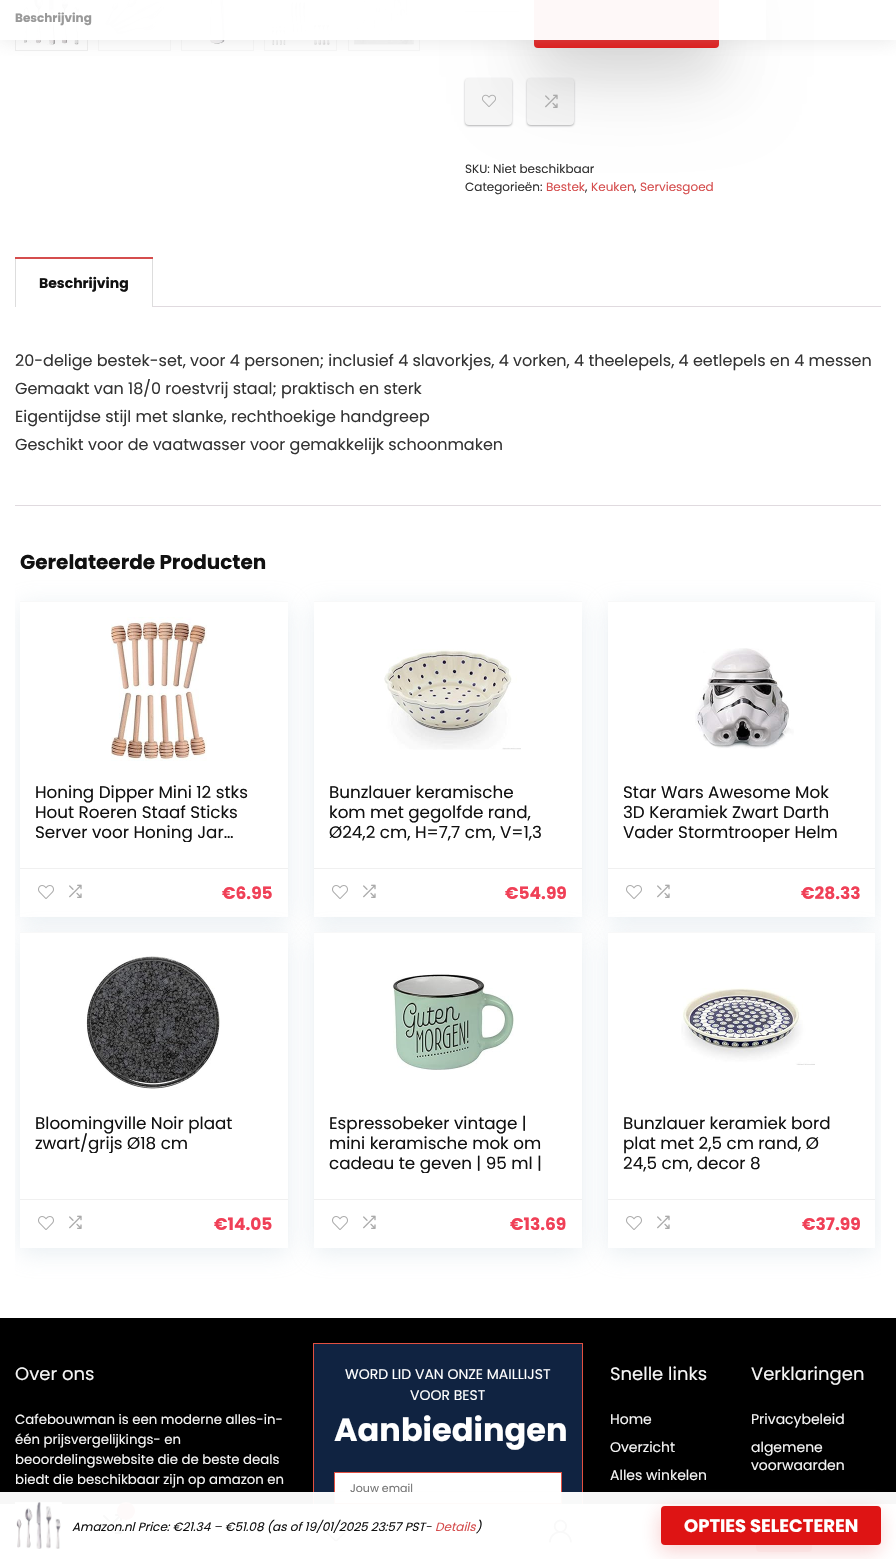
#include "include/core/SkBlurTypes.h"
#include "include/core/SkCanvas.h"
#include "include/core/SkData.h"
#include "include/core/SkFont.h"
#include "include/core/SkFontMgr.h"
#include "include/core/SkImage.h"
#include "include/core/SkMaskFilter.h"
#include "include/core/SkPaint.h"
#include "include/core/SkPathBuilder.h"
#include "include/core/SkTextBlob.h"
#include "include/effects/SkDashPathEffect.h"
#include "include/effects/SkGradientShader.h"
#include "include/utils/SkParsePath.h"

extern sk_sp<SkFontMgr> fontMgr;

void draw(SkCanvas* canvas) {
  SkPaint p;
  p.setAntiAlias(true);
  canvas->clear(SK_ColorWHITE);
  p.setStyle(SkPaint::kStroke_Style);
  p.setStrokeWidth(1);
  p.setColor(SkColorSetRGB(238, 238, 238));
  canvas->drawRect(SkRect::MakeLTRB(15.5f, -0.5f, 87.5f, 50.5f), p);
  canvas->drawImageRect(SkImages::DeferredFromEncodedData(SkData::MakeFromFileName("images/1.png")), SkRect::MakeLTRB(23, 0, 80, 45), SkSamplingOptions());
  p.setColor(SkColorSetRGB(247, 247, 247));
  canvas->drawRect(SkRect::MakeLTRB(98.5f, -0.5f, 170.5f, 50.5f), p);
  canvas->drawImageRect(SkImages::DeferredFromEncodedData(SkData::MakeFromFileName("images/2.png")), SkRect::MakeLTRB(104, 0, 165, 35), SkSamplingOptions());
  canvas->drawRect(SkRect::MakeLTRB(181.5f, -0.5f, 253.5f, 50.5f), p);
  canvas->drawImageRect(SkImages::DeferredFromEncodedData(SkData::MakeFromFileName("images/3.png")), SkRect::MakeLTRB(210, 0, 225, 44), SkSamplingOptions());
  canvas->drawRect(SkRect::MakeLTRB(264.5f, -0.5f, 336.5f, 50.5f), p);
  canvas->drawImageRect(SkImages::DeferredFromEncodedData(SkData::MakeFromFileName("images/4.png")), SkRect::MakeLTRB(271, 0, 330, 45), SkSamplingOptions());
  canvas->drawRect(SkRect::MakeLTRB(348.5f, -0.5f, 419.5f, 50.5f), p);
  canvas->drawImageRect(SkImages::DeferredFromEncodedData(SkData::MakeFromFileName("images/5.png")), SkRect::MakeLTRB(354, 0, 414, 45), SkSamplingOptions());
  p.setStyle(SkPaint::kFill_Style);
  p.setColor(SkColorSetRGB(204, 204, 204));
  canvas->drawRect(SkRect::MakeLTRB(465, 11, 519, 12), p);
  p.setColor(SkColorSetARGB(20, 0, 0, 0));
  p.setMaskFilter(SkMaskFilter::MakeBlur(kNormal_SkBlurStyle, 1));
  canvas->drawRoundRect(SkRect::MakeLTRB(465, 79, 512, 126), 4, 4, p);
  p.setMaskFilter(nullptr);
  p.setColor(SkColorSetARGB(77, 60, 64, 67));
  p.setMaskFilter(SkMaskFilter::MakeBlur(kNormal_SkBlurStyle, 1));
  canvas->drawRoundRect(SkRect::MakeLTRB(465, 79, 512, 126), 4, 4, p);
  p.setMaskFilter(nullptr);
  p.setColor(SkColorSetRGB(246, 246, 246));
  canvas->drawRoundRect(SkRect::MakeLTRB(465, 78, 512, 125), 4, 4, p);
  canvas->drawImageRect(SkImages::DeferredFromEncodedData(SkData::MakeFromFileName("images/6.png")), SkRect::MakeLTRB(482, 94, 496, 107), SkSamplingOptions());
  p.setColor(SkColorSetARGB(20, 0, 0, 0));
  p.setMaskFilter(SkMaskFilter::MakeBlur(kNormal_SkBlurStyle, 1));
  canvas->drawRoundRect(SkRect::MakeLTRB(527, 79, 574, 126), 4, 4, p);
  p.setMaskFilter(nullptr);
  p.setColor(SkColorSetARGB(77, 60, 64, 67));
  p.setMaskFilter(SkMaskFilter::MakeBlur(kNormal_SkBlurStyle, 1));
  canvas->drawRoundRect(SkRect::MakeLTRB(527, 79, 574, 126), 4, 4, p);
  p.setMaskFilter(nullptr);
  p.setColor(SkColorSetRGB(246, 246, 246));
  canvas->drawRoundRect(SkRect::MakeLTRB(527, 78, 574, 125), 4, 4, p);
  p.setColor(SkColorSetARGB(31, 0, 0, 0));
  p.setMaskFilter(SkMaskFilter::MakeBlur(kNormal_SkBlurStyle, 40));
  canvas->drawRoundRect(SkRect::MakeLTRB(534, -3, 719, 78), 4, 4, p);
  p.setMaskFilter(nullptr);
  p.setColor(SkColorSetARGB(15, 0, 0, 0));
  p.setMaskFilter(SkMaskFilter::MakeBlur(kNormal_SkBlurStyle, 19));
  canvas->drawRoundRect(SkRect::MakeLTRB(534, -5, 719, 76), 4, 4, p);
  p.setMaskFilter(nullptr);
  p.setColor(SkColorSetRGB(222, 20, 20));
  canvas->drawRoundRect(SkRect::MakeLTRB(534, -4, 719, 48), 4, 4, p);
  canvas->save();
  canvas->clipRect(SkRect::MakeLTRB(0, 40, 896, 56));
  p.setColor(SkColorSetARGB(92, 187, 187, 187));
  p.setMaskFilter(SkMaskFilter::MakeBlur(kNormal_SkBlurStyle, 10));
  canvas->drawRect(SkRect::MakeLTRB(0, 0, 896, 40), p);
  p.setMaskFilter(nullptr);
  canvas->restore();
  p.setColor(SkColorSetARGB(247, 255, 255, 255));
  canvas->drawRect(SkRect::MakeLTRB(15, 0, 766, 40), p);
  canvas->drawImageRect(SkImages::DeferredFromEncodedData(SkData::MakeFromFileName("images/7.png")), SkRect::MakeLTRB(545, 94, 558, 108), SkSamplingOptions());
  p.setColor(SkColorSetRGB(213, 77, 77));
  canvas->drawRect(SkRect::MakeLTRB(15, 257, 153, 259), p);
  p.setColor(SkColorSetRGB(221, 221, 221));
  canvas->drawRect(SkRect::MakeLTRB(152, 259, 153, 307), p);
  canvas->drawRect(SkRect::MakeLTRB(15, 259, 16, 307), p);
  p.setColor(SkColorSetRGB(224, 218, 223));
  canvas->drawRect(SkRect::MakeLTRB(153, 306, 881, 307), p);
  canvas->drawRect(SkRect::MakeLTRB(15, 505, 881, 506), p);
  canvas->save();
  canvas->clipRect(SkRect::MakeLTRB(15, 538, 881, 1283));
  canvas->clipPath(SkPathBuilder(SkPathFillType::kEvenOdd).moveTo(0, 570).lineTo(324, 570).lineTo(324, 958).lineTo(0, 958).close().moveTo(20, 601).lineTo(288, 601).lineTo(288, 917).lineTo(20, 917).close().detach(), true);
  p.setColor(SkColorSetARGB(89, 188, 207, 219));
  p.setMaskFilter(SkMaskFilter::MakeBlur(kNormal_SkBlurStyle, 11.5f));
  canvas->drawRect(SkRect::MakeLTRB(20, 606, 288, 922), p);
  p.setMaskFilter(nullptr);
  canvas->restore();
  p.setColor(SkColorSetRGB(248, 248, 248));
  canvas->drawRect(SkRect::MakeLTRB(20, 601, 288, 602), p);
  canvas->drawImageRect(SkImages::DeferredFromEncodedData(SkData::MakeFromFileName("images/8.png")), SkRect::MakeLTRB(111, 617, 207, 761), SkSamplingOptions());
  p.setColor(SkColorSetRGB(240, 240, 240));
  canvas->drawRect(SkRect::MakeLTRB(20, 868, 288, 869), p);
  canvas->drawImageRect(SkImages::DeferredFromEncodedData(SkData::MakeFromFileName("images/9.png")), SkRect::MakeLTRB(38, 885, 54, 899), SkSamplingOptions());
  canvas->drawImageRect(SkImages::DeferredFromEncodedData(SkData::MakeFromFileName("images/10.png")), SkRect::MakeLTRB(69, 884, 82, 898), SkSamplingOptions());
  canvas->save();
  canvas->clipPath(SkPathBuilder(SkPathFillType::kEvenOdd).moveTo(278, 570).lineTo(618, 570).lineTo(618, 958).lineTo(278, 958).close().moveTo(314, 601).lineTo(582, 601).lineTo(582, 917).lineTo(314, 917).close().detach(), true);
  p.setColor(SkColorSetARGB(89, 188, 207, 219));
  p.setMaskFilter(SkMaskFilter::MakeBlur(kNormal_SkBlurStyle, 11.5f));
  canvas->drawRect(SkRect::MakeLTRB(314, 606, 582, 922), p);
  p.setMaskFilter(nullptr);
  canvas->restore();
  p.setColor(SkColorSetRGB(248, 248, 248));
  canvas->drawRect(SkRect::MakeLTRB(314, 601, 582, 602), p);
  canvas->drawImageRect(SkImages::DeferredFromEncodedData(SkData::MakeFromFileName("images/11.png")), SkRect::MakeLTRB(384, 649, 521, 750), SkSamplingOptions());
  p.setColor(SkColorSetRGB(240, 240, 240));
  canvas->drawRect(SkRect::MakeLTRB(314, 868, 582, 869), p);
  canvas->drawImageRect(SkImages::DeferredFromEncodedData(SkData::MakeFromFileName("images/9.png")), SkRect::MakeLTRB(332, 885, 348, 899), SkSamplingOptions());
  canvas->drawImageRect(SkImages::DeferredFromEncodedData(SkData::MakeFromFileName("images/10.png")), SkRect::MakeLTRB(363, 884, 376, 898), SkSamplingOptions());
  canvas->save();
  canvas->clipRect(SkRect::MakeLTRB(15, 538, 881, 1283));
  canvas->clipPath(SkPathBuilder(SkPathFillType::kEvenOdd).moveTo(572, 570).lineTo(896, 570).lineTo(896, 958).lineTo(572, 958).close().moveTo(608, 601).lineTo(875, 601).lineTo(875, 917).lineTo(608, 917).close().detach(), true);
  p.setColor(SkColorSetARGB(89, 188, 207, 219));
  p.setMaskFilter(SkMaskFilter::MakeBlur(kNormal_SkBlurStyle, 11.5f));
  canvas->drawRect(SkRect::MakeLTRB(608, 606, 875, 922), p);
  p.setMaskFilter(nullptr);
  canvas->restore();
  p.setColor(SkColorSetRGB(248, 248, 248));
  canvas->drawRect(SkRect::MakeLTRB(608, 601, 875, 602), p);
  canvas->drawImageRect(SkImages::DeferredFromEncodedData(SkData::MakeFromFileName("images/12.png")), SkRect::MakeLTRB(695, 648, 794, 749), SkSamplingOptions());
  p.setColor(SkColorSetRGB(240, 240, 240));
  canvas->drawRect(SkRect::MakeLTRB(608, 868, 875, 869), p);
  canvas->drawImageRect(SkImages::DeferredFromEncodedData(SkData::MakeFromFileName("images/9.png")), SkRect::MakeLTRB(626, 885, 642, 899), SkSamplingOptions());
  canvas->drawImageRect(SkImages::DeferredFromEncodedData(SkData::MakeFromFileName("images/10.png")), SkRect::MakeLTRB(657, 884, 670, 898), SkSamplingOptions());
  canvas->save();
  canvas->clipRect(SkRect::MakeLTRB(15, 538, 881, 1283));
  p.setColor(SkColorSetARGB(89, 188, 207, 219));
  p.setMaskFilter(SkMaskFilter::MakeBlur(kNormal_SkBlurStyle, 11.5f));
  canvas->drawRect(SkRect::MakeLTRB(20, 937, 288, 1253), p);
  p.setMaskFilter(nullptr);
  canvas->restore();
  p.setColor(SK_ColorWHITE);
  canvas->drawRect(SkRect::MakeLTRB(20, 933, 288, 1248), p);
  p.setColor(SkColorSetRGB(248, 248, 248));
  canvas->drawRect(SkRect::MakeLTRB(20, 932, 288, 933), p);
  canvas->drawImageRect(SkImages::DeferredFromEncodedData(SkData::MakeFromFileName("images/13.png")), SkRect::MakeLTRB(86, 956, 220, 1089), SkSamplingOptions());
  p.setColor(SkColorSetRGB(240, 240, 240));
  canvas->drawRect(SkRect::MakeLTRB(20, 1199, 288, 1200), p);
  canvas->drawImageRect(SkImages::DeferredFromEncodedData(SkData::MakeFromFileName("images/9.png")), SkRect::MakeLTRB(38, 1216, 54, 1230), SkSamplingOptions());
  canvas->drawImageRect(SkImages::DeferredFromEncodedData(SkData::MakeFromFileName("images/10.png")), SkRect::MakeLTRB(69, 1215, 82, 1229), SkSamplingOptions());
  p.setColor(SkColorSetARGB(89, 188, 207, 219));
  p.setMaskFilter(SkMaskFilter::MakeBlur(kNormal_SkBlurStyle, 11.5f));
  canvas->drawRect(SkRect::MakeLTRB(314, 937, 582, 1253), p);
  p.setMaskFilter(nullptr);
  p.setColor(SK_ColorWHITE);
  canvas->drawRect(SkRect::MakeLTRB(314, 933, 582, 1248), p);
  p.setColor(SkColorSetRGB(248, 248, 248));
  canvas->drawRect(SkRect::MakeLTRB(314, 932, 582, 933), p);
  canvas->drawImageRect(SkImages::DeferredFromEncodedData(SkData::MakeFromFileName("images/14.png")), SkRect::MakeLTRB(393, 973, 514, 1070), SkSamplingOptions());
  p.setColor(SkColorSetRGB(240, 240, 240));
  canvas->drawRect(SkRect::MakeLTRB(314, 1199, 582, 1200), p);
  canvas->drawImageRect(SkImages::DeferredFromEncodedData(SkData::MakeFromFileName("images/9.png")), SkRect::MakeLTRB(332, 1216, 348, 1230), SkSamplingOptions());
  canvas->drawImageRect(SkImages::DeferredFromEncodedData(SkData::MakeFromFileName("images/10.png")), SkRect::MakeLTRB(363, 1215, 376, 1229), SkSamplingOptions());
  canvas->save();
  canvas->clipRect(SkRect::MakeLTRB(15, 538, 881, 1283));
  p.setColor(SkColorSetARGB(89, 188, 207, 219));
  p.setMaskFilter(SkMaskFilter::MakeBlur(kNormal_SkBlurStyle, 11.5f));
  canvas->drawRect(SkRect::MakeLTRB(608, 937, 875, 1253), p);
  p.setMaskFilter(nullptr);
  canvas->restore();
  p.setColor(SK_ColorWHITE);
  canvas->drawRect(SkRect::MakeLTRB(608, 933, 875, 1248), p);
  p.setColor(SkColorSetRGB(248, 248, 248));
  canvas->drawRect(SkRect::MakeLTRB(608, 932, 875, 933), p);
  canvas->drawImageRect(SkImages::DeferredFromEncodedData(SkData::MakeFromFileName("images/15.png")), SkRect::MakeLTRB(681, 988, 815, 1065), SkSamplingOptions());
  p.setColor(SkColorSetRGB(240, 240, 240));
  canvas->drawRect(SkRect::MakeLTRB(608, 1199, 875, 1200), p);
  canvas->drawImageRect(SkImages::DeferredFromEncodedData(SkData::MakeFromFileName("images/9.png")), SkRect::MakeLTRB(626, 1216, 642, 1230), SkSamplingOptions());
  canvas->drawImageRect(SkImages::DeferredFromEncodedData(SkData::MakeFromFileName("images/10.png")), SkRect::MakeLTRB(657, 1215, 670, 1229), SkSamplingOptions());
  p.setColor(SK_ColorBLACK);
  canvas->drawRect(SkRect::MakeLTRB(0, 1318, 896, 1504), p);
  p.setColor(SkColorSetRGB(16, 35, 65));
  canvas->drawRect(SkRect::MakeLTRB(314, 1344, 582, 1504), p);
  p.setStyle(SkPaint::kStroke_Style);
  p.setColor(SkColorSetRGB(226, 80, 65));
  canvas->drawRect(SkRect::MakeLTRB(313.5f, 1343.5f, 582.5f, 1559.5f), p);
  p.setStyle(SkPaint::kFill_Style);
  p.setColor(SK_ColorWHITE);
  canvas->drawRect(SkRect::MakeLTRB(334.5f, 1472.5f, 561.5f, 1503.5f), p);
  p.setStyle(SkPaint::kStroke_Style);
  p.setColor(SkColorSetRGB(226, 80, 65));
  canvas->drawRect(SkRect::MakeLTRB(334.5f, 1472.5f, 561.5f, 1503.5f), p);
  p.setStyle(SkPaint::kFill_Style);
  p.setColor(SkColorSetARGB(31, 0, 0, 0));
  p.setMaskFilter(SkMaskFilter::MakeBlur(kNormal_SkBlurStyle, 4.5f));
  canvas->drawRect(SkRect::MakeLTRB(0, 1504, 896, 1559), p);
  p.setMaskFilter(nullptr);
  p.setColor(SK_ColorWHITE);
  canvas->drawRect(SkRect::MakeLTRB(0, 1504, 896, 1559), p);
  canvas->drawImageRect(SkImages::DeferredFromEncodedData(SkData::MakeFromFileName("images/17.png")), SkRect::MakeLTRB(103, 1514, 122, 1534), SkSamplingOptions());
  p.setColor(SkColorSetRGB(213, 77, 77));
  canvas->drawCircle(126, 1511, 9, p);
  canvas->drawImageRect(SkImages::DeferredFromEncodedData(SkData::MakeFromFileName("images/18.png")), SkRect::MakeLTRB(324, 1520, 348, 1542), SkSamplingOptions());
  canvas->drawImageRect(SkImages::DeferredFromEncodedData(SkData::MakeFromFileName("images/19.png")), SkRect::MakeLTRB(549, 1519, 572, 1543), SkSamplingOptions());
  p.setColor(SkColorSetARGB(51, 222, 20, 20));
  p.setMaskFilter(SkMaskFilter::MakeBlur(kNormal_SkBlurStyle, 9.5f));
  canvas->drawRoundRect(SkRect::MakeLTRB(755, 1517, 811, 1558), 4, 4, p);
  p.setMaskFilter(nullptr);
  p.setColor(SkColorSetRGB(222, 20, 20));
  canvas->drawRoundRect(SkRect::MakeLTRB(756, 1511, 812, 1552), 4, 4, p);
  SkFont font1(fontMgr->matchFamilyStyle("Poppins", SkFontStyle::Bold()), 12);
  font1.setSubpixel(true);
  p.setColor(SkColorSetRGB(153, 153, 153));
  canvas->drawString("Beschrijving", 15, 22, font1, p);
  SkFont font2(fontMgr->matchFamilyStyle("Poppins", SkFontStyle::Normal()), 12);
  font2.setSubpixel(true);
  p.setColor(SkColorSetRGB(51, 51, 51));
  canvas->drawString("SKU: Niet beschikbaar", 465, 173, font2, p);
  canvas->drawString("Categorieën:", 465, 191, font2, p);
  p.setColor(SkColorSetRGB(213, 77, 77));
  canvas->drawString("Bestek", 546, 191, font2, p);
  p.setColor(SkColorSetRGB(51, 51, 51));
  canvas->drawString(",", 585, 191, font2, p);
  p.setColor(SkColorSetRGB(213, 77, 77));
  canvas->drawString("Keuken", 591, 191, font2, p);
  p.setColor(SkColorSetRGB(51, 51, 51));
  canvas->drawString(",", 634, 191, font2, p);
  p.setColor(SkColorSetRGB(213, 77, 77));
  canvas->drawString("Serviesgoed", 640, 191, font2, p);
  SkFont font3(fontMgr->matchFamilyStyle("Poppins", SkFontStyle::Bold()), 14);
  font3.setSubpixel(true);
  p.setColor(SkColorSetRGB(17, 17, 17));
  canvas->drawString("Beschrijving", 39, 288, font3, p);
  SkFont font4(fontMgr->matchFamilyStyle("Poppins", SkFontStyle::Normal()), 16);
  font4.setSubpixel(true);
  p.setColor(SkColorSetRGB(51, 51, 51));
  canvas->drawString("20-delige bestek-set, voor 4 personen; inclusief 4 slavorkjes, 4 vorken, 4 theelepels, 4 eetlepels en 4 messen", 15, 366, font4, p);
  canvas->drawString("Gemaakt van 18/0 roestvrij staal; praktisch en sterk", 15, 394, font4, p);
  canvas->drawString("Eigentijdse stijl met slanke, rechthoekige handgreep", 15, 422, font4, p);
  canvas->drawString("Geschikt voor de vaatwasser voor gemakkelijk schoonmaken", 15, 450, font4, p);
  SkFont font5(fontMgr->matchFamilyStyle("Poppins", SkFontStyle::Bold()), 20);
  font5.setSubpixel(true);
  p.setColor(SkColorSetRGB(17, 17, 17));
  canvas->drawString("Gerelateerde Producten", 20, 569, font5, p);
  SkFont font6(fontMgr->matchFamilyStyle("Poppins", SkFontStyle::Normal()), 16.75f);
  font6.setSubpixel(true);
  canvas->drawString("Honing Dipper Mini 12 stks", 35, 798, font6, p);
  canvas->drawString("Hout Roeren Staaf Sticks", 35, 818, font6, p);
  canvas->save();
  canvas->clipRect(SkRect::MakeLTRB(35, 782, 258, 842));
  canvas->drawString("Server voor Honing Jar…", 35, 838, font6, p);
  canvas->restore();
  SkFont font7(fontMgr->matchFamilyStyle("Poppins", SkFontStyle::Bold()), 17);
  font7.setSubpixel(true);
  p.setColor(SkColorSetRGB(240, 64, 87));
  canvas->drawString("€6.95", 222, 899, font7, p);
  p.setColor(SkColorSetRGB(17, 17, 17));
  canvas->drawString("Bunzlauer keramische", 329, 798, font6, p);
  canvas->drawString("kom met gegolfde rand,", 329, 818, font6, p);
  canvas->drawString("Ø24,2 cm, H=7,7 cm, V=1,3", 329, 838, font6, p);
  p.setColor(SkColorSetRGB(240, 64, 87));
  canvas->drawString("€54.99", 505, 899, font7, p);
  p.setColor(SkColorSetRGB(17, 17, 17));
  canvas->drawString("Star Wars Awesome Mok", 623, 798, font6, p);
  canvas->drawString("3D Keramiek Zwart Darth", 623, 818, font6, p);
  canvas->save();
  canvas->clipRect(SkRect::MakeLTRB(623, 782, 845, 842));
  canvas->drawString("Vader Stormtrooper Helm", 623, 838, font6, p);
  canvas->restore();
  p.setColor(SkColorSetRGB(240, 64, 87));
  canvas->drawString("€28.33", 801, 899, font7, p);
  p.setColor(SkColorSetRGB(17, 17, 17));
  canvas->drawString("Bloomingville Noir plaat", 35, 1129, font6, p);
  canvas->save();
  canvas->clipRect(SkRect::MakeLTRB(35, 1113, 258, 1153));
  canvas->drawString("zwart/grijs Ø18 cm", 35, 1149, font6, p);
  canvas->restore();
  p.setColor(SkColorSetRGB(240, 64, 87));
  canvas->drawString("€14.05", 214, 1230, font7, p);
  p.setColor(SkColorSetRGB(17, 17, 17));
  canvas->drawString("Espressobeker vintage |", 329, 1129, font6, p);
  canvas->drawString("mini keramische mok om", 329, 1149, font6, p);
  canvas->save();
  canvas->clipRect(SkRect::MakeLTRB(329, 1113, 552, 1173));
  canvas->drawString("cadeau te geven | 95 ml |", 329, 1169, font6, p);
  canvas->restore();
  p.setColor(SkColorSetRGB(240, 64, 87));
  canvas->drawString("€13.69", 510, 1230, font7, p);
  p.setColor(SkColorSetRGB(17, 17, 17));
  canvas->drawString("Bunzlauer keramiek bord", 623, 1129, font6, p);
  canvas->drawString("plat met 2,5 cm rand, Ø", 623, 1149, font6, p);
  canvas->drawString("24,5 cm, decor 8", 623, 1169, font6, p);
  p.setColor(SkColorSetRGB(240, 64, 87));
  canvas->drawString("€37.99", 802, 1230, font7, p);
  SkFont font8(fontMgr->matchFamilyStyle("Poppins", SkFontStyle::Normal()), 18);
  font8.setSubpixel(true);
  p.setColor(SkColorSetRGB(245, 245, 245));
  canvas->drawString("Over ons", 15, 1380, font8, p);
  SkFont font9(fontMgr->matchFamilyStyle("Poppins", SkFontStyle::Normal()), 13.3f);
  font9.setSubpixel(true);
  canvas->drawString("Cafebouwman is een moderne alles-in-", 15, 1424, font9, p);
  canvas->drawString("één prijsvergelijkings- en", 15, 1444, font9, p);
  canvas->drawString("beoordelingswebsite die de beste deals", 15, 1464, font9, p);
  canvas->drawString("biedt die beschikbaar zijn op amazon en", 15, 1484, font9, p);
  SkFont font10(fontMgr->matchFamilyStyle("Poppins", SkFontStyle::Normal()), 14);
  font10.setSubpixel(true);
  p.setColor(SK_ColorWHITE);
  canvas->drawString("WORD LID VAN ONZE MAILLIJST", 345, 1379, font10, p);
  canvas->drawString("VOOR BEST", 410, 1400, font10, p);
  SkFont font11(fontMgr->matchFamilyStyle("Poppins", SkFontStyle::Bold()), 32);
  font11.setSubpixel(true);
  canvas->drawString("Aanbiedingen", 334, 1441, font11, p);
  SkFont font12(fontMgr->matchFamilyStyle("Poppins", SkFontStyle::Normal()), 11);
  font12.setSubpixel(true);
  p.setColor(SkColorSetRGB(117, 117, 117));
  canvas->drawString("Jouw email", 350, 1492, font12, p);
  p.setColor(SkColorSetARGB(247, 255, 255, 255));
  canvas->drawRect(SkRect::MakeLTRB(0, 1492, 896, 1559), p);
  p.setColor(SkColorSetARGB(51, 222, 20, 20));
  p.setMaskFilter(SkMaskFilter::MakeBlur(kNormal_SkBlurStyle, 9.5f));
  canvas->drawRoundRect(SkRect::MakeLTRB(660, 1512, 880, 1551), 4, 4, p);
  p.setMaskFilter(nullptr);
  p.setColor(SkColorSetRGB(222, 20, 20));
  canvas->drawRoundRect(SkRect::MakeLTRB(661, 1506, 881, 1545), 4, 4, p);
  SkFont font13(fontMgr->matchFamilyStyle("Poppins", SkFontStyle::Bold()), 18);
  font13.setSubpixel(true);
  p.setColor(SK_ColorWHITE);
  canvas->drawString("OPTIES SELECTEREN", 684, 1532, font13, p);
  SkFont font14(fontMgr->matchFamilyStyle("Poppins", SkFontStyle::Italic()), 12);
  font14.setSubpixel(true);
  p.setColor(SkColorSetRGB(213, 77, 77));
  canvas->drawString("Details", 435, 1531, font14, p);
  p.setColor(SkColorSetRGB(17, 17, 17));
  canvas->drawString(")", 476, 1531, font14, p);
  canvas->drawString("Amazon.nl Price: €21.34 – €51.08 (as of 19/01/2025 23:57 PST-", 72, 1531, font14, p);
  canvas->drawImageRect(SkImages::DeferredFromEncodedData(SkData::MakeFromFileName("images/16.png")), SkRect::MakeLTRB(15, 1502, 62, 1549), SkSamplingOptions());
  p.setColor(SkColorSetRGB(245, 245, 245));
  canvas->drawString("Snelle links", 610, 1380, font8, p);
  canvas->drawString("Home", 610, 1424, font10, p);
  canvas->drawString("Overzicht", 610, 1452, font10, p);
  canvas->drawString("Alles winkelen", 610, 1480, font10, p);
  canvas->drawString("Verklaringen", 751, 1380, font8, p);
  canvas->drawString("Privacybeleid", 751, 1424, font10, p);
  canvas->drawString("algemene", 751, 1452, font10, p);
  canvas->drawString("voorwaarden", 751, 1470, font10, p);
}
